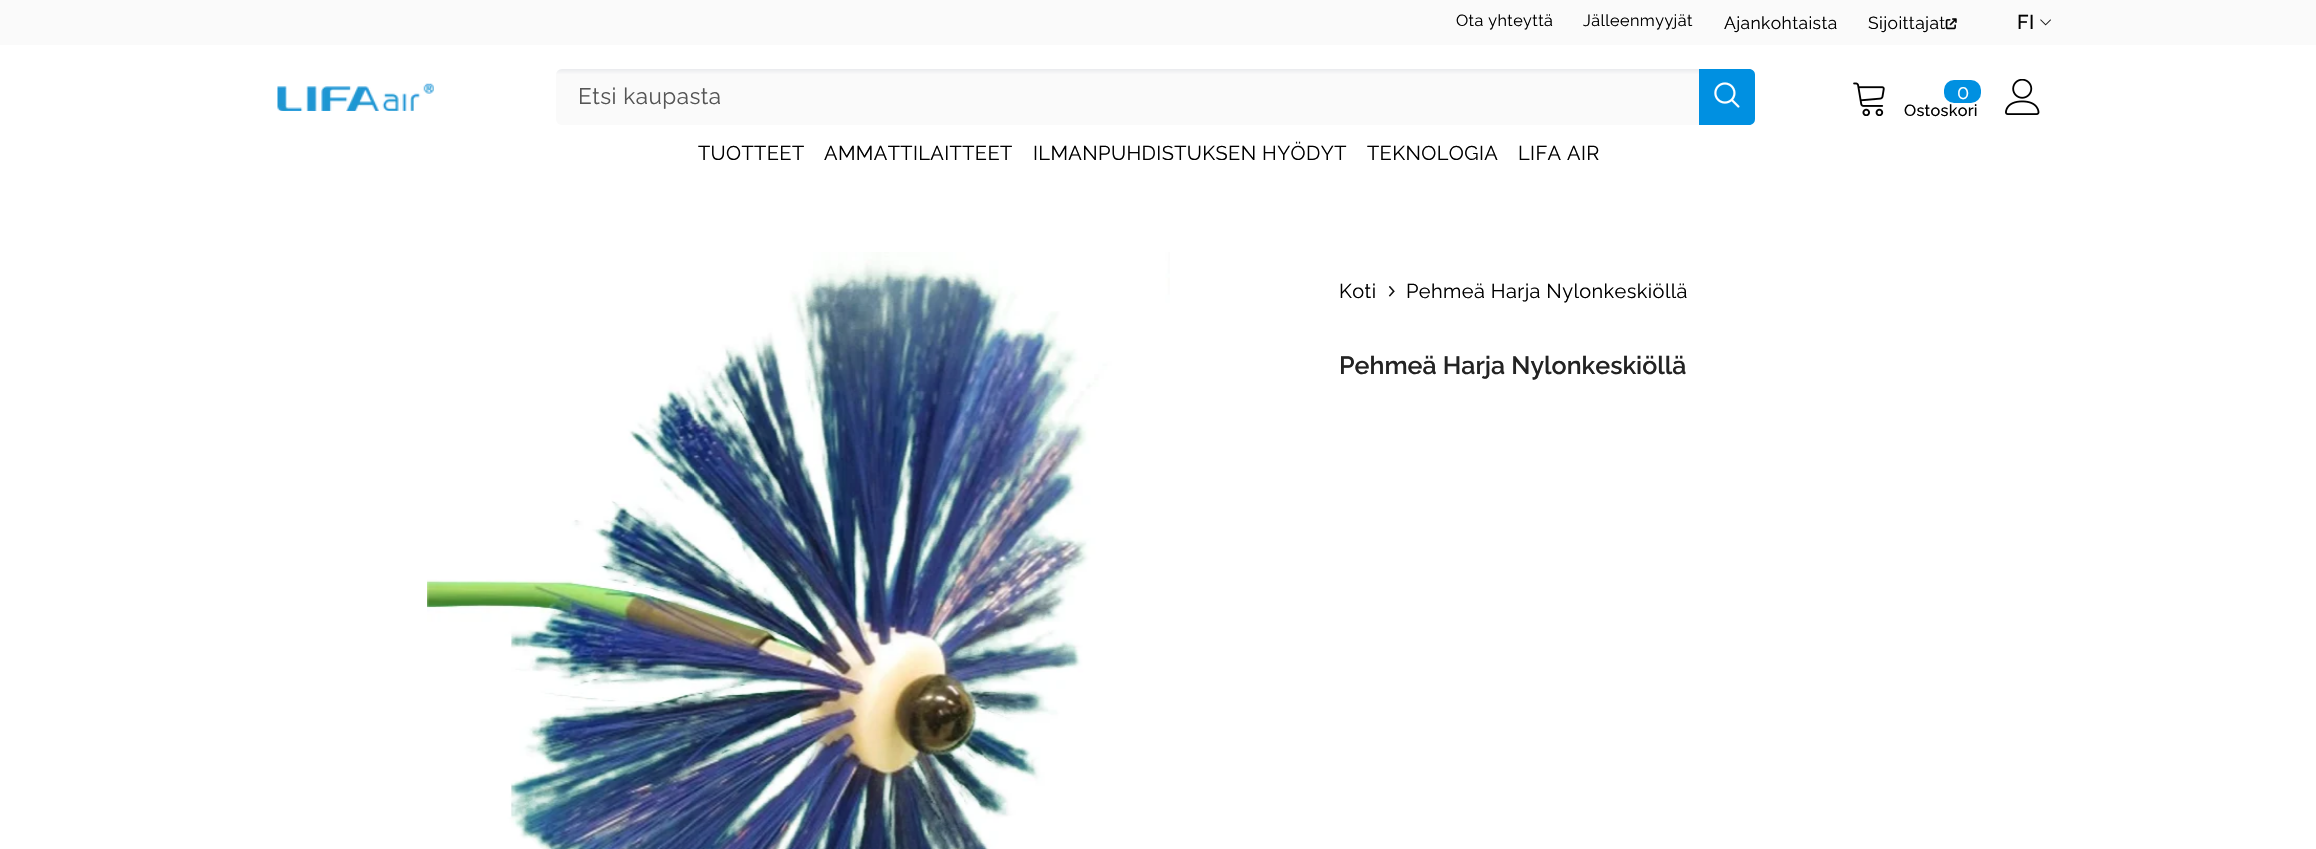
#include "include/core/SkBlurTypes.h"
#include "include/core/SkCanvas.h"
#include "include/core/SkData.h"
#include "include/core/SkFont.h"
#include "include/core/SkFontMgr.h"
#include "include/core/SkImage.h"
#include "include/core/SkMaskFilter.h"
#include "include/core/SkPaint.h"
#include "include/core/SkPathBuilder.h"
#include "include/core/SkTextBlob.h"
#include "include/effects/SkDashPathEffect.h"
#include "include/effects/SkGradientShader.h"
#include "include/utils/SkParsePath.h"

extern sk_sp<SkFontMgr> fontMgr;

void draw(SkCanvas* canvas) {
  SkPaint p;
  p.setAntiAlias(true);
  auto spacedText = [&](const char* s, float x, float y, const SkFont& font, const SkPaint& ink, float letter, float word) {
    std::vector<SkGlyphID> glyphs(font.countText(s, strlen(s), SkTextEncoding::kUTF8));
    std::vector<float> xs(glyphs.size());
    font.textToGlyphs(s, strlen(s), SkTextEncoding::kUTF8, glyphs);
    font.getXPos(glyphs, xs, x);
    float extra = 0;
    for (size_t i = 0; i < glyphs.size(); i++) {
      xs[i] += extra;
      extra += letter + word * (glyphs[i] == font.unicharToGlyph(' '));
    }
    canvas->drawTextBlob(SkTextBlob::MakeFromPosHGlyphs(glyphs, xs, y, font), 0, 0, ink);
  };
  canvas->clear(SK_ColorWHITE);
  p.setColor(SkColorSetRGB(250, 250, 250));
  canvas->drawRect(SkRect::MakeLTRB(0, 0, 2316, 45), p);
  canvas->drawImageRect(SkImages::DeferredFromEncodedData(SkData::MakeFromFileName("images/1.png")), SkRect::MakeLTRB(1945, 18, 1957, 30), SkSamplingOptions());
  canvas->drawImageRect(SkImages::DeferredFromEncodedData(SkData::MakeFromFileName("images/2.png")), SkRect::MakeLTRB(2040, 19, 2051, 26), SkSamplingOptions());
  canvas->drawImageRect(SkImages::DeferredFromEncodedData(SkData::MakeFromFileName("images/3.png")), SkRect::MakeLTRB(277, 83, 434, 111), SkSamplingOptions());
  {
    const SkColor colors[] = {SkColorSetRGB(233, 235, 238), SkColorSetRGB(250, 250, 250), SkColorSetRGB(250, 250, 250)};
    const float stops[] = {0, 0.1f, 1};
    const SkPoint ends[] = {{1156, 69}, {1156, 125}};
    p.setShader(SkGradientShader::MakeLinear(ends, colors, stops, 3, SkTileMode::kClamp));
    p.setAlpha(255);
  }
  canvas->drawRoundRect(SkRect::MakeLTRB(556, 69, 1755, 125), 6, 6, p);
  p.setShader(nullptr);
  p.setColor(SkColorSetRGB(0, 144, 225));
  canvas->drawPath(SkPathBuilder().moveTo(1699, 69).lineTo(1749, 69).cubicTo(1752.5f, 69, 1755, 71.5f, 1755, 75).lineTo(1755, 119).cubicTo(1755, 122.5f, 1752.5f, 125, 1749, 125).lineTo(1699, 125).close().detach(), p);
  canvas->drawImageRect(SkImages::DeferredFromEncodedData(SkData::MakeFromFileName("images/4.png")), SkRect::MakeLTRB(1714, 82, 1740, 108), SkSamplingOptions());
  canvas->drawImageRect(SkImages::DeferredFromEncodedData(SkData::MakeFromFileName("images/5.png")), SkRect::MakeLTRB(1853, 82, 1885, 116), SkSamplingOptions());
  canvas->drawRoundRect(SkRect::MakeLTRB(1944, 80, 1981, 103), 10, 10, p);
  canvas->drawImageRect(SkImages::DeferredFromEncodedData(SkData::MakeFromFileName("images/6.png")), SkRect::MakeLTRB(2005, 79, 2040, 115), SkSamplingOptions());
  canvas->drawImageRect(SkImages::DeferredFromEncodedData(SkData::MakeFromFileName("images/7.png")), SkRect::MakeLTRB(427, 252, 1170, 849), SkSamplingOptions());
  canvas->drawImageRect(SkImages::DeferredFromEncodedData(SkData::MakeFromFileName("images/8.png")), SkRect::MakeLTRB(1388, 286, 1395, 297), SkSamplingOptions());
  SkFont font1(fontMgr->matchFamilyStyle("Raleway", SkFontStyle::Normal()), 16.25f);
  font1.setSubpixel(true);
  p.setColor(SK_ColorBLACK);
  spacedText("Ota yhteyttä", 1456, 26, font1, p, 0.4f, 0);
  spacedText("Jälleenmyyjät", 1583, 26, font1, p, 0.4f, 0);
  SkFont font2(fontMgr->matchFamilyStyle("Raleway", SkFontStyle::Normal()), 17.5f);
  font2.setSubpixel(true);
  spacedText("Ajankohtaista", 1724, 29, font2, p, 0.4f, 0);
  spacedText("Sijoittajat", 1868, 29, font2, p, 0.4f, 0);
  SkFont font3(fontMgr->matchFamilyStyle("Raleway", SkFontStyle(500, SkFontStyle::kNormal_Width, SkFontStyle::kUpright_Slant)), 20);
  font3.setSubpixel(true);
  spacedText("FI", 2017, 29, font3, p, 0.4f, 0);
  SkFont font4(fontMgr->matchFamilyStyle("Raleway", SkFontStyle::Normal()), 22.5f);
  font4.setSubpixel(true);
  p.setColor(SkColorSetRGB(85, 85, 85));
  spacedText("Etsi kaupasta", 578, 104, font4, p, 0.5f, 0);
  SkFont font5(fontMgr->matchFamilyStyle("Raleway", SkFontStyle::Normal()), 20);
  font5.setSubpixel(true);
  p.setColor(SK_ColorWHITE);
  spacedText("0", 1957, 99, font5, p, 0.4f, 0);
  SkFont font6(fontMgr->matchFamilyStyle("Raleway", SkFontStyle(500, SkFontStyle::kNormal_Width, SkFontStyle::kUpright_Slant)), 16.25f);
  font6.setSubpixel(true);
  p.setColor(SK_ColorBLACK);
  spacedText("Ostoskori", 1904, 116, font6, p, 0.25f, 0);
  spacedText("TUOTTEET", 698, 160, font5, p, 0.4f, 0);
  spacedText("AMMATTILAITTEET", 824, 160, font5, p, 0.4f, 0);
  spacedText("ILMANPUHDISTUKSEN HYÖDYT", 1033, 160, font5, p, 0.4f, 0);
  spacedText("TEKNOLOGIA", 1367, 160, font5, p, 0.4f, 0);
  spacedText("LIFA AIR", 1518, 160, font5, p, 0.4f, 0);
  spacedText("Koti", 1339, 298, font5, p, 0.4f, 0);
  spacedText("Pehmeä Harja Nylonkeskiöllä", 1406, 298, font5, p, 0.4f, 0);
  SkFont font7(fontMgr->matchFamilyStyle("Raleway", SkFontStyle(600, SkFontStyle::kNormal_Width, SkFontStyle::kUpright_Slant)), 25);
  font7.setSubpixel(true);
  p.setColor(SkColorSetRGB(35, 35, 35));
  canvas->drawString("Pehmeä Harja Nylonkeskiöllä", 1339, 374, font7, p);
}
